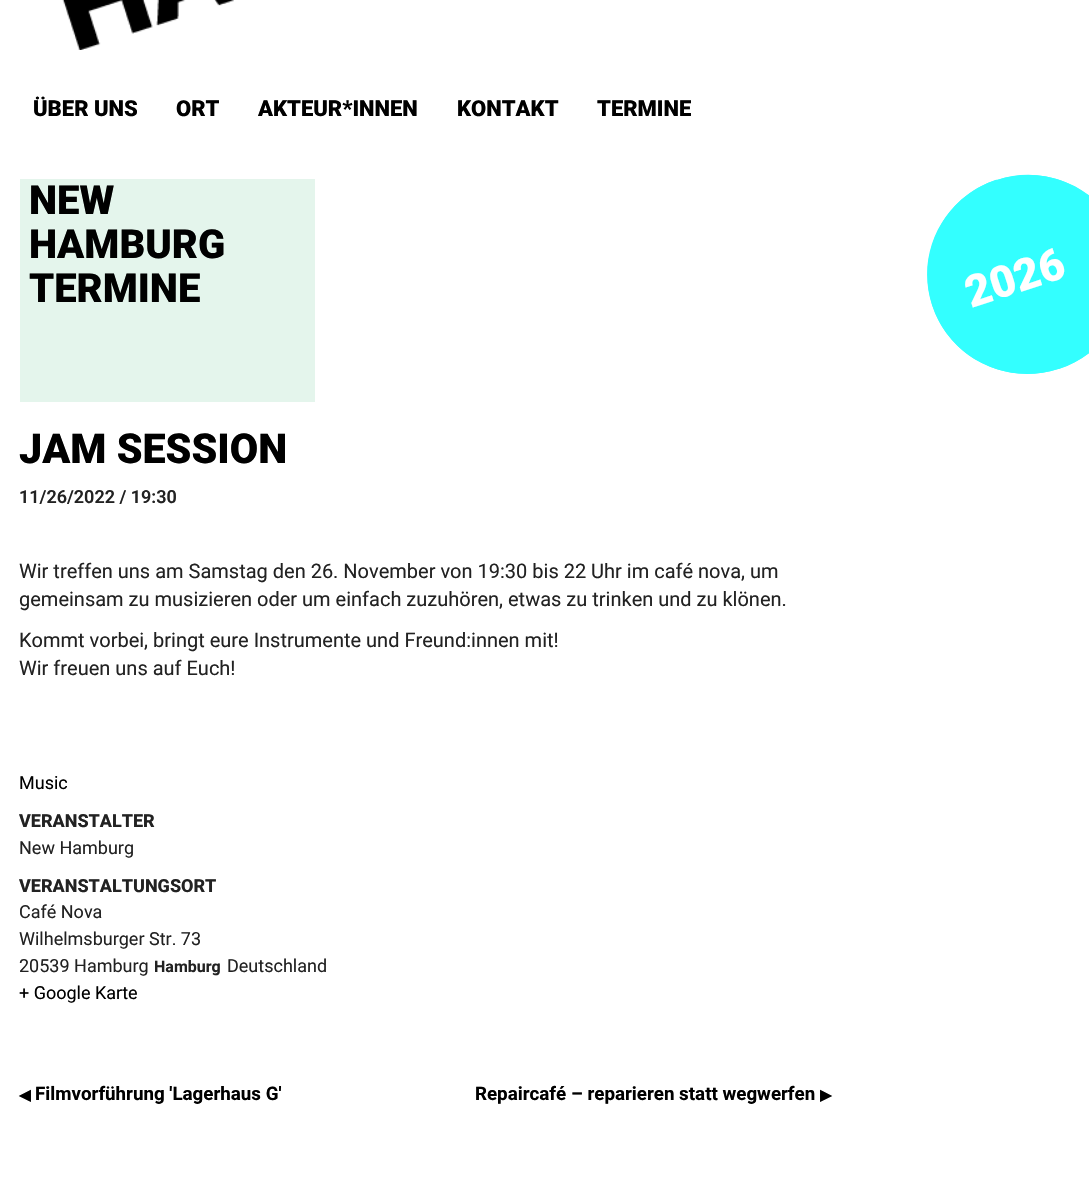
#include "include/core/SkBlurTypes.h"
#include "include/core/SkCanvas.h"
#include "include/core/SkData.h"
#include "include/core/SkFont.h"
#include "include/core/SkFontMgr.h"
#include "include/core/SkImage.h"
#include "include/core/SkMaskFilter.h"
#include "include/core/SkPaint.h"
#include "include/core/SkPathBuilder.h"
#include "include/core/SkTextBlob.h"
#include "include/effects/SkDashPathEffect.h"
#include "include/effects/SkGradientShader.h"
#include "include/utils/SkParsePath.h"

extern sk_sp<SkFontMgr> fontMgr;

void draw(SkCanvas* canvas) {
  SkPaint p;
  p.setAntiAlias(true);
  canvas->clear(SK_ColorWHITE);
  canvas->drawImageRect(SkImages::DeferredFromEncodedData(SkData::MakeFromFileName("images/1.png")), SkRect::MakeLTRB(62, 0, 234, 50), SkSamplingOptions());
  p.setColor(SkColorSetRGB(228, 245, 236));
  canvas->drawRect(SkRect::MakeLTRB(20, 179, 315, 402), p);
  p.setColor(SkColorSetRGB(51, 255, 255));
  canvas->drawPath(SkPathBuilder().moveTo(996, 180).lineTo(997, 180).cubicTo(1050, 163, 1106, 191, 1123, 243).cubicTo(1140, 296, 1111, 352, 1059, 369).lineTo(1058, 369).cubicTo(1005, 386, 949, 357, 932, 305).cubicTo(915, 253, 944, 197, 996, 180).close().detach(), p);
  p.setStyle(SkPaint::kStroke_Style);
  p.setStrokeWidth(2.5f);
  canvas->drawPath(SkPathBuilder().moveTo(996.5f, 181).lineTo(998, 181).cubicTo(1049.5f, 164, 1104.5f, 192.5f, 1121.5f, 244).cubicTo(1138, 295.5f, 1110, 351, 1058.5f, 367.5f).lineTo(1057, 368).cubicTo(1005.5f, 384.5f, 950.5f, 356.5f, 933.5f, 305).cubicTo(917, 253.5f, 945, 198, 996.5f, 181).close().detach(), p);
  SkFont font1(fontMgr->matchFamilyStyle("Roboto", SkFontStyle(900, SkFontStyle::kNormal_Width, SkFontStyle::kUpright_Slant)), 22);
  font1.setSubpixel(true);
  p.setStyle(SkPaint::kFill_Style);
  p.setColor(SK_ColorBLACK);
  canvas->drawString("ÜBER UNS", 33, 116, font1, p);
  canvas->drawString("ORT", 176, 116, font1, p);
  canvas->drawString("AKTEUR*INNEN", 258, 116, font1, p);
  canvas->drawString("KONTAKT", 457, 116, font1, p);
  canvas->drawString("TERMINE", 597, 116, font1, p);
  SkFont font2(fontMgr->matchFamilyStyle("Roboto", SkFontStyle(900, SkFontStyle::kNormal_Width, SkFontStyle::kUpright_Slant)), 40);
  font2.setSubpixel(true);
  canvas->drawString("NEW", 29, 214, font2, p);
  canvas->drawString("HAMBURG", 29, 258, font2, p);
  canvas->drawString("TERMINE", 29, 302, font2, p);
  SkFont font3(fontMgr->matchFamilyStyle("Roboto", SkFontStyle(900, SkFontStyle::kNormal_Width, SkFontStyle::kUpright_Slant)), 41.25f);
  font3.setSubpixel(true);
  canvas->drawString("JAM SESSION", 19, 463, font3, p);
  SkFont font4(fontMgr->matchFamilyStyle("Roboto", SkFontStyle(600, SkFontStyle::kNormal_Width, SkFontStyle::kUpright_Slant)), 18);
  font4.setSubpixel(true);
  p.setColor(SkColorSetRGB(34, 34, 34));
  canvas->drawString("11/26/2022 / 19:30", 19, 503, font4, p);
  SkFont font5(fontMgr->matchFamilyStyle("Roboto", SkFontStyle::Normal()), 20);
  font5.setSubpixel(true);
  canvas->drawString("Wir treffen uns am Samstag den 26. November von 19:30 bis 22 Uhr im café nova, um", 19, 578, font5, p);
  canvas->drawString("gemeinsam zu musizieren oder um einfach zuzuhören, etwas zu trinken und zu klönen.", 19, 606, font5, p);
  canvas->drawString("Kommt vorbei, bringt eure Instrumente und Freund:innen mit!", 19, 647, font5, p);
  canvas->drawString("Wir freuen uns auf Euch!", 19, 675, font5, p);
  SkFont font6(fontMgr->matchFamilyStyle("Roboto", SkFontStyle::Normal()), 18);
  font6.setSubpixel(true);
  p.setColor(SK_ColorBLACK);
  canvas->drawString("Music", 19, 789, font6, p);
  SkFont font7(fontMgr->matchFamilyStyle("Roboto", SkFontStyle(800, SkFontStyle::kNormal_Width, SkFontStyle::kUpright_Slant)), 18);
  font7.setSubpixel(true);
  p.setColor(SkColorSetRGB(34, 34, 34));
  canvas->drawString("VERANSTALTER", 19, 827, font7, p);
  canvas->drawString("New Hamburg", 19, 854, font6, p);
  canvas->drawString("VERANSTALTUNGSORT", 19, 892, font7, p);
  canvas->drawString("Café Nova", 19, 918, font6, p);
  canvas->drawString("Wilhelmsburger Str. 73", 19, 945, font6, p);
  canvas->drawString("20539 Hamburg", 19, 972, font6, p);
  SkFont font8(fontMgr->matchFamilyStyle("Roboto", SkFontStyle::Bold()), 16);
  font8.setSubpixel(true);
  canvas->drawString("Hamburg", 154, 972, font8, p);
  canvas->drawString("Deutschland", 227, 972, font6, p);
  p.setColor(SK_ColorBLACK);
  canvas->drawString("+ Google Karte", 19, 999, font6, p);
  SkFont font9(fontMgr->matchFamilyStyle("DejaVu Sans", SkFontStyle::Bold()), 15);
  font9.setSubpixel(true);
  canvas->drawString("◀", 19, 1100, font9, p);
  SkFont font10(fontMgr->matchFamilyStyle("Roboto", SkFontStyle::Bold()), 18.75f);
  font10.setSubpixel(true);
  canvas->drawString("Filmvorführung 'Lagerhaus G'", 35, 1100, font10, p);
  canvas->drawString("Repaircafé – reparieren statt wegwerfen", 475, 1100, font10, p);
  canvas->drawString("▶", 820, 1100, font9, p);
  SkFont font11(fontMgr->matchFamilyStyle("Roboto", SkFontStyle(900, SkFontStyle::kNormal_Width, SkFontStyle::kUpright_Slant)), 44);
  font11.setSubpixel(true);
  p.setColor(SK_ColorWHITE);
  canvas->save();
  canvas->rotate(-18, 971, 308);
  canvas->drawString("2026", 971, 308, font11, p);
  canvas->restore();
}
